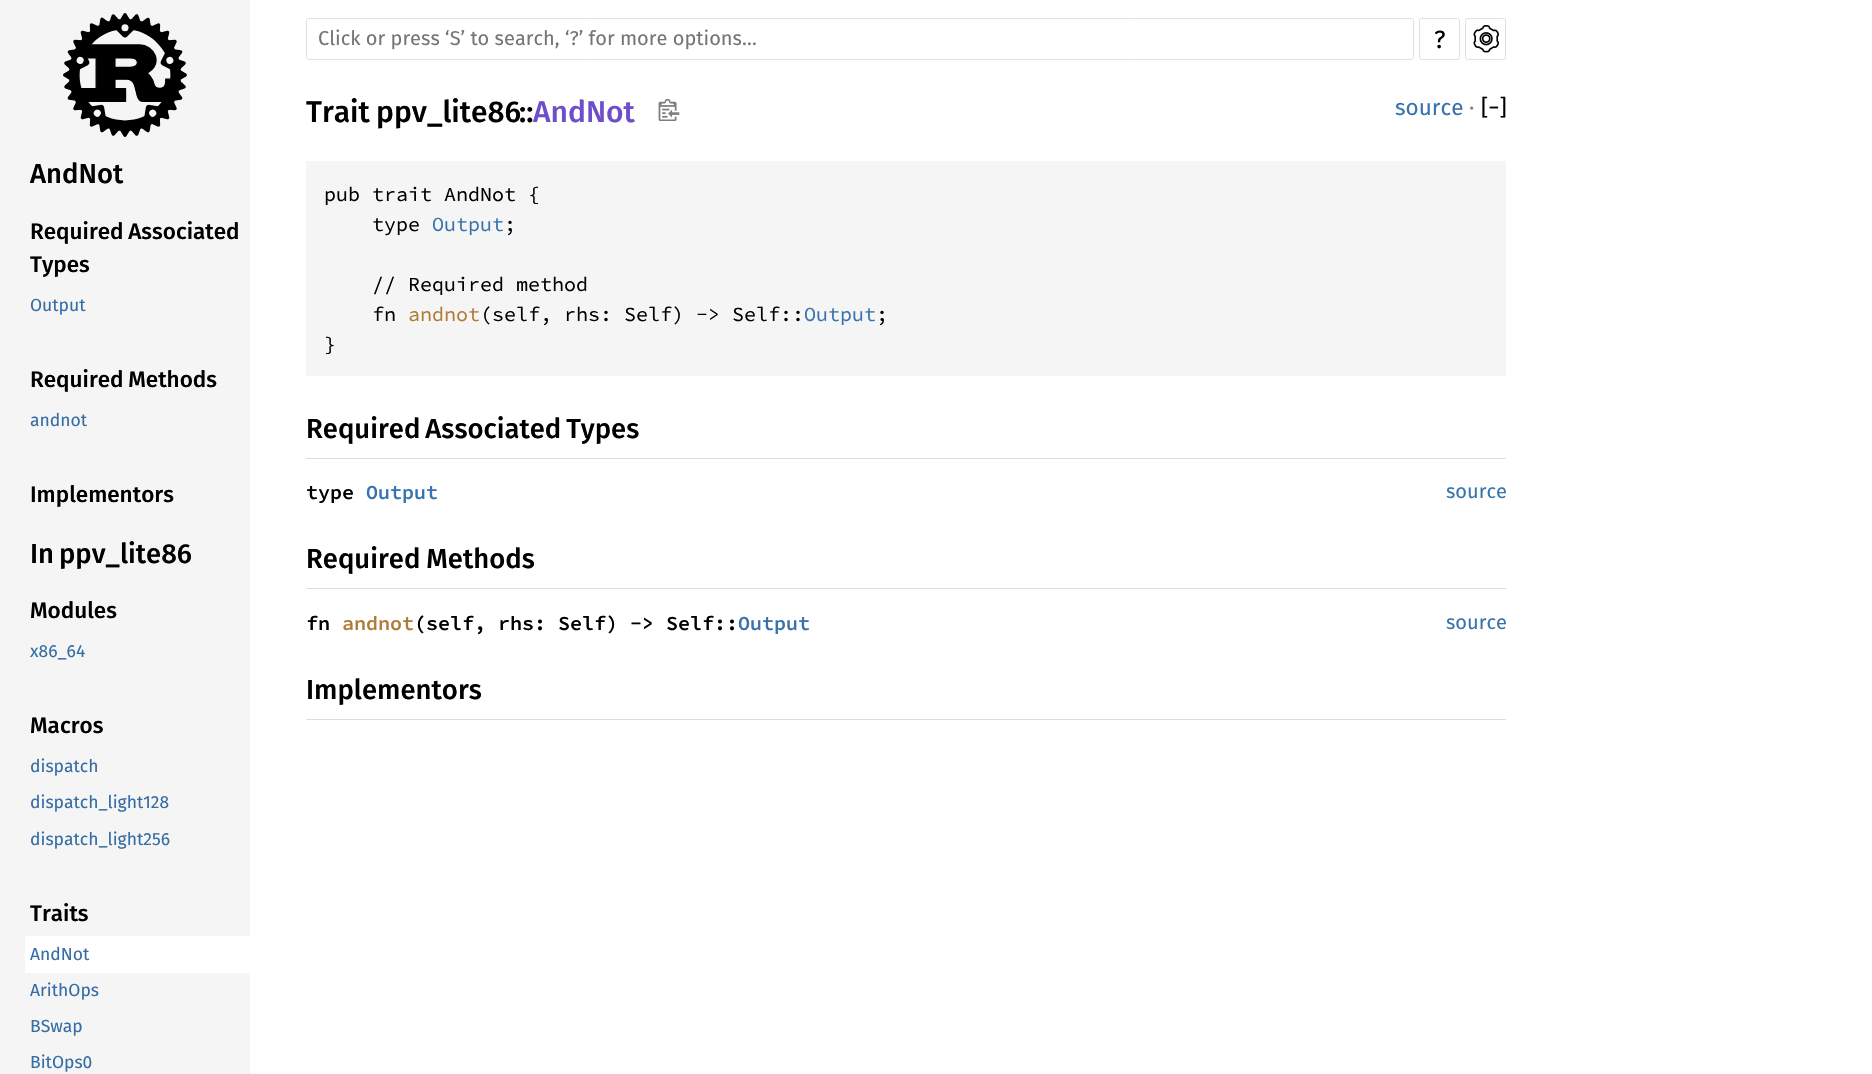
#include "include/core/SkBlurTypes.h"
#include "include/core/SkCanvas.h"
#include "include/core/SkData.h"
#include "include/core/SkFont.h"
#include "include/core/SkFontMgr.h"
#include "include/core/SkImage.h"
#include "include/core/SkMaskFilter.h"
#include "include/core/SkPaint.h"
#include "include/core/SkPathBuilder.h"
#include "include/core/SkTextBlob.h"
#include "include/effects/SkDashPathEffect.h"
#include "include/effects/SkGradientShader.h"
#include "include/utils/SkParsePath.h"

extern sk_sp<SkFontMgr> fontMgr;

void draw(SkCanvas* canvas) {
  SkPaint p;
  p.setAntiAlias(true);
  auto spacedText = [&](const char* s, float x, float y, const SkFont& font, const SkPaint& ink, float letter, float word) {
    std::vector<SkGlyphID> glyphs(font.countText(s, strlen(s), SkTextEncoding::kUTF8));
    std::vector<float> xs(glyphs.size());
    font.textToGlyphs(s, strlen(s), SkTextEncoding::kUTF8, glyphs);
    font.getXPos(glyphs, xs, x);
    float extra = 0;
    for (size_t i = 0; i < glyphs.size(); i++) {
      xs[i] += extra;
      extra += letter + word * (glyphs[i] == font.unicharToGlyph(' '));
    }
    canvas->drawTextBlob(SkTextBlob::MakeFromPosHGlyphs(glyphs, xs, y, font), 0, 0, ink);
  };
  canvas->clear(SK_ColorWHITE);
  p.setColor(SkColorSetRGB(245, 245, 245));
  canvas->drawRect(SkRect::MakeLTRB(0, 0, 250, 1074), p);
  canvas->drawImageRect(SkImages::DeferredFromEncodedData(SkData::MakeFromFileName("images/1.png")), SkRect::MakeLTRB(63, 13, 187, 137), SkSamplingOptions());
  p.setColor(SK_ColorWHITE);
  canvas->drawRect(SkRect::MakeLTRB(25, 936, 250, 973), p);
  p.setStyle(SkPaint::kStroke_Style);
  p.setStrokeWidth(1);
  p.setColor(SkColorSetRGB(224, 224, 224));
  canvas->drawRoundRect(SkRect::MakeLTRB(306.5f, 18.5f, 1413.5f, 59.5f), 2, 2, p);
  canvas->drawRoundRect(SkRect::MakeLTRB(1419.5f, 18.5f, 1459.5f, 59.5f), 2, 2, p);
  canvas->drawRoundRect(SkRect::MakeLTRB(1465.5f, 18.5f, 1505.5f, 59.5f), 2, 2, p);
  canvas->drawImageRect(SkImages::DeferredFromEncodedData(SkData::MakeFromFileName("images/2.png")), SkRect::MakeLTRB(1473, 25, 1499, 53), SkSamplingOptions());
  canvas->drawImageRect(SkImages::DeferredFromEncodedData(SkData::MakeFromFileName("images/3.png")), SkRect::MakeLTRB(658, 99, 680, 121), SkSamplingOptions());
  p.setStyle(SkPaint::kFill_Style);
  p.setColor(SkColorSetRGB(245, 245, 245));
  canvas->drawRect(SkRect::MakeLTRB(306, 161, 1506, 376), p);
  p.setColor(SkColorSetRGB(221, 221, 221));
  canvas->drawRect(SkRect::MakeLTRB(306, 458, 1506, 459), p);
  canvas->drawRect(SkRect::MakeLTRB(306, 588, 1506, 589), p);
  canvas->drawRect(SkRect::MakeLTRB(306, 719, 1506, 720), p);
  SkFont font1(fontMgr->matchFamilyStyle("Fira Sans", SkFontStyle(500, SkFontStyle::kNormal_Width, SkFontStyle::kUpright_Slant)), 27.5f);
  font1.setSubpixel(true);
  p.setColor(SK_ColorBLACK);
  canvas->drawString("AndNot", 30, 183, font1, p);
  SkFont font2(fontMgr->matchFamilyStyle("Fira Sans", SkFontStyle(500, SkFontStyle::kNormal_Width, SkFontStyle::kUpright_Slant)), 22.5f);
  font2.setSubpixel(true);
  spacedText("Required Associated", 30, 239, font2, p, 0, -1);
  canvas->drawString("Types", 30, 272, font2, p);
  SkFont font3(fontMgr->matchFamilyStyle("Fira Sans", SkFontStyle::Normal()), 17.5f);
  font3.setSubpixel(true);
  p.setColor(SkColorSetRGB(53, 109, 164));
  canvas->drawString("Output", 30, 311, font3, p);
  p.setColor(SK_ColorBLACK);
  spacedText("Required Methods", 30, 387, font2, p, 0, -1);
  p.setColor(SkColorSetRGB(53, 109, 164));
  canvas->drawString("andnot", 30, 426, font3, p);
  p.setColor(SK_ColorBLACK);
  canvas->drawString("Implementors", 30, 502, font2, p);
  spacedText("In ppv_lite86", 30, 563, font1, p, 0, -2);
  canvas->drawString("Modules", 30, 618, font2, p);
  p.setColor(SkColorSetRGB(53, 109, 164));
  canvas->drawString("x86_64", 30, 657, font3, p);
  p.setColor(SK_ColorBLACK);
  canvas->drawString("Macros", 30, 733, font2, p);
  p.setColor(SkColorSetRGB(53, 109, 164));
  canvas->drawString("dispatch", 30, 772, font3, p);
  canvas->drawString("dispatch_light128", 30, 808, font3, p);
  canvas->drawString("dispatch_light256", 30, 845, font3, p);
  p.setColor(SK_ColorBLACK);
  canvas->drawString("Traits", 30, 921, font2, p);
  p.setColor(SkColorSetRGB(53, 109, 164));
  canvas->drawString("AndNot", 30, 960, font3, p);
  canvas->drawString("ArithOps", 30, 996, font3, p);
  canvas->drawString("BSwap", 30, 1032, font3, p);
  canvas->drawString("BitOps0", 30, 1068, font3, p);
  SkFont font4(fontMgr->matchFamilyStyle("Fira Sans", SkFontStyle::Normal()), 20);
  font4.setSubpixel(true);
  p.setColor(SkColorSetRGB(117, 117, 117));
  canvas->drawString("Click or press ‘S’ to search, ‘?’ for more options…", 318, 45, font4, p);
  SkFont font5(fontMgr->matchFamilyStyle("Fira Sans", SkFontStyle::Normal()), 25);
  font5.setSubpixel(true);
  p.setColor(SK_ColorBLACK);
  canvas->drawString("?", 1434, 48, font5, p);
  SkFont font6(fontMgr->matchFamilyStyle("Fira Sans", SkFontStyle(500, SkFontStyle::kNormal_Width, SkFontStyle::kUpright_Slant)), 30);
  font6.setSubpixel(true);
  canvas->drawString("Trait", 306, 122, font6, p);
  canvas->drawString("ppv_lite86", 376, 122, font6, p);
  canvas->drawString("::", 519, 122, font6, p);
  p.setColor(SkColorSetRGB(110, 79, 201));
  canvas->drawString("AndNot", 533, 122, font6, p);
  SkFont font7(fontMgr->matchFamilyStyle("Fira Sans", SkFontStyle::Normal()), 22.5f);
  font7.setSubpixel(true);
  p.setColor(SkColorSetRGB(56, 115, 173));
  canvas->drawString("source", 1395, 115, font7, p);
  p.setColor(SkColorSetRGB(128, 128, 128));
  canvas->drawString("·", 1469, 115, font7, p);
  p.setColor(SK_ColorBLACK);
  canvas->drawString("[−]", 1481, 115, font7, p);
  SkFont font8(fontMgr->matchFamilyStyle("Source Code Pro", SkFontStyle::Normal()), 20);
  font8.setSubpixel(true);
  canvas->drawString("pub trait AndNot {", 324, 201, font8, p);
  canvas->drawString("type", 372, 231, font8, p);
  p.setColor(SkColorSetRGB(56, 115, 173));
  canvas->drawString("Output", 432, 231, font8, p);
  p.setColor(SK_ColorBLACK);
  canvas->drawString(";", 504, 231, font8, p);
  canvas->drawString("// Required method", 372, 291, font8, p);
  canvas->drawString("fn", 372, 321, font8, p);
  p.setColor(SkColorSetRGB(173, 124, 55));
  canvas->drawString("andnot", 408, 321, font8, p);
  p.setColor(SK_ColorBLACK);
  canvas->drawString("(self, rhs: Self) -> Self::", 480, 321, font8, p);
  p.setColor(SkColorSetRGB(56, 115, 173));
  canvas->drawString("Output", 804, 321, font8, p);
  p.setColor(SK_ColorBLACK);
  canvas->drawString(";", 876, 321, font8, p);
  canvas->drawString("}", 324, 351, font8, p);
  spacedText("Required Associated Types", 306, 438, font1, p, 0, -2);
  SkFont font9(fontMgr->matchFamilyStyle("Source Code Pro", SkFontStyle(600, SkFontStyle::kNormal_Width, SkFontStyle::kUpright_Slant)), 20);
  font9.setSubpixel(true);
  canvas->drawString("type", 306, 499, font9, p);
  p.setColor(SkColorSetRGB(56, 115, 173));
  canvas->drawString("Output", 366, 499, font9, p);
  canvas->drawString("source", 1446, 498, font4, p);
  p.setColor(SK_ColorBLACK);
  spacedText("Required Methods", 306, 568, font1, p, 0, -1);
  canvas->drawString("fn", 306, 630, font9, p);
  p.setColor(SkColorSetRGB(173, 124, 55));
  canvas->drawString("andnot", 342, 630, font9, p);
  p.setColor(SK_ColorBLACK);
  canvas->drawString("(self, rhs: Self) -> Self::", 414, 630, font9, p);
  p.setColor(SkColorSetRGB(56, 115, 173));
  canvas->drawString("Output", 738, 630, font9, p);
  canvas->drawString("source", 1446, 629, font4, p);
  p.setColor(SK_ColorBLACK);
  canvas->drawString("Implementors", 306, 699, font1, p);
}
